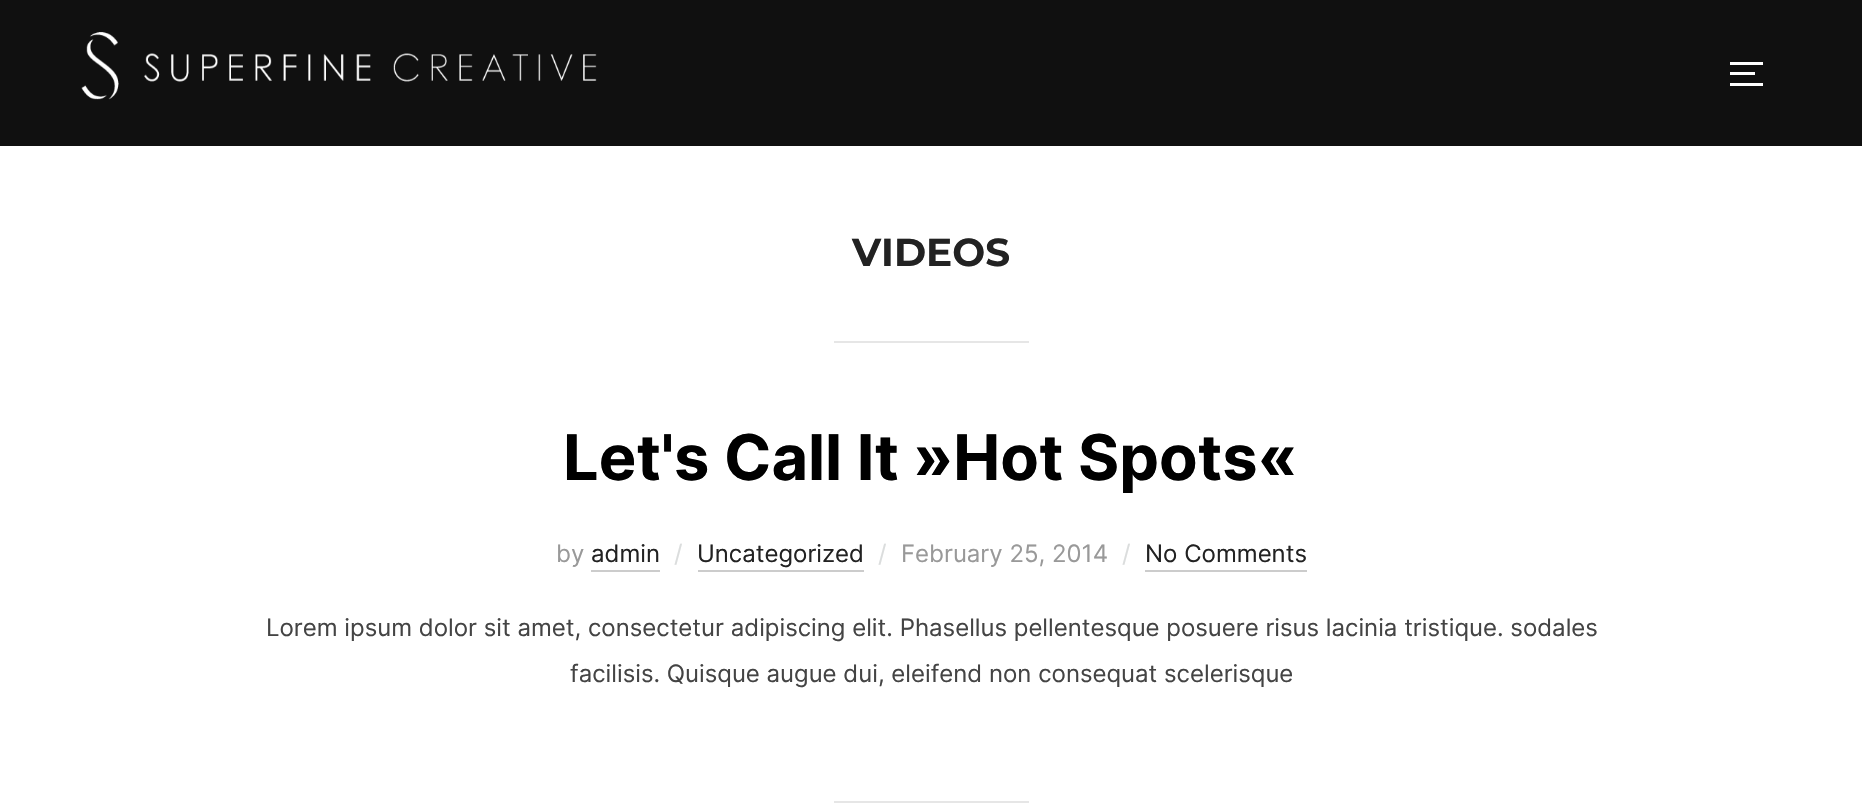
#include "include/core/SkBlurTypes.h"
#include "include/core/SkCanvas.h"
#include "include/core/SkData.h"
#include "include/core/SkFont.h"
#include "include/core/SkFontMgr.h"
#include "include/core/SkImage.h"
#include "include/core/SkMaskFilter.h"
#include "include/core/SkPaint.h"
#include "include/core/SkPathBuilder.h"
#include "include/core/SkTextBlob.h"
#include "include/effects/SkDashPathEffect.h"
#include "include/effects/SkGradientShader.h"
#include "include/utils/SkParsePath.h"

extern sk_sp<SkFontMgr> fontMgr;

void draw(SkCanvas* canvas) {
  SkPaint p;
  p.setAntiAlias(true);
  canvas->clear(SK_ColorWHITE);
  p.setColor(SkColorSetRGB(16, 16, 16));
  canvas->drawRect(SkRect::MakeLTRB(0, 0, 1862, 146), p);
  canvas->drawImageRect(SkImages::DeferredFromEncodedData(SkData::MakeFromFileName("images/1.png")), SkRect::MakeLTRB(81, 32, 597, 100), SkSamplingOptions());
  p.setColor(SK_ColorWHITE);
  canvas->drawRect(SkRect::MakeLTRB(1730, 62, 1763, 65), p);
  canvas->drawRect(SkRect::MakeLTRB(1730, 72, 1755, 75), p);
  canvas->drawRect(SkRect::MakeLTRB(1730, 83, 1763, 86), p);
  p.setColor(SkColorSetRGB(230, 230, 230));
  canvas->drawRect(SkRect::MakeLTRB(834, 341, 1029, 343), p);
  p.setColor(SkColorSetRGB(204, 204, 204));
  canvas->drawRect(SkRect::MakeLTRB(591, 570, 660, 572), p);
  canvas->drawRect(SkRect::MakeLTRB(698, 570, 864, 572), p);
  canvas->drawRect(SkRect::MakeLTRB(1145, 570, 1307, 572), p);
  p.setColor(SkColorSetRGB(230, 230, 230));
  canvas->drawRect(SkRect::MakeLTRB(834, 801, 1029, 803), p);
  SkFont font1(fontMgr->matchFamilyStyle("Montserrat", SkFontStyle::Bold()), 39);
  font1.setSubpixel(true);
  p.setColor(SkColorSetRGB(34, 34, 34));
  canvas->drawString("VIDEOS", 852, 266, font1, p);
  SkFont font2(fontMgr->matchFamilyStyle("Inter", SkFontStyle::Bold()), 63);
  font2.setSubpixel(true);
  p.setColor(SK_ColorBLACK);
  canvas->drawString("Let's Call It »Hot Spots«", 563, 480, font2, p);
  SkFont font3(fontMgr->matchFamilyStyle("Inter", SkFontStyle::Normal()), 24);
  font3.setSubpixel(true);
  p.setColor(SkColorSetRGB(153, 153, 153));
  canvas->drawString("by", 556, 562, font3, p);
  p.setColor(SkColorSetRGB(34, 34, 34));
  canvas->drawString("admin", 591, 562, font3, p);
  p.setColor(SkColorSetRGB(219, 221, 221));
  canvas->drawString("/", 674, 562, font3, p);
  p.setColor(SkColorSetRGB(34, 34, 34));
  canvas->drawString("Uncategorized", 697, 562, font3, p);
  p.setColor(SkColorSetRGB(219, 221, 221));
  canvas->drawString("/", 878, 562, font3, p);
  p.setColor(SkColorSetRGB(153, 153, 153));
  canvas->drawString("February 25, 2014", 901, 562, font3, p);
  p.setColor(SkColorSetRGB(219, 221, 221));
  canvas->drawString("/", 1122, 562, font3, p);
  p.setColor(SkColorSetRGB(34, 34, 34));
  canvas->drawString("No Comments", 1145, 562, font3, p);
  p.setColor(SkColorSetRGB(68, 68, 68));
  canvas->drawString("Lorem ipsum dolor sit amet, consectetur adipiscing elit. Phasellus pellentesque posuere risus lacinia tristique. sodales", 266, 636, font3, p);
  canvas->drawString("facilisis. Quisque augue dui, eleifend non consequat scelerisque", 570, 682, font3, p);
}
